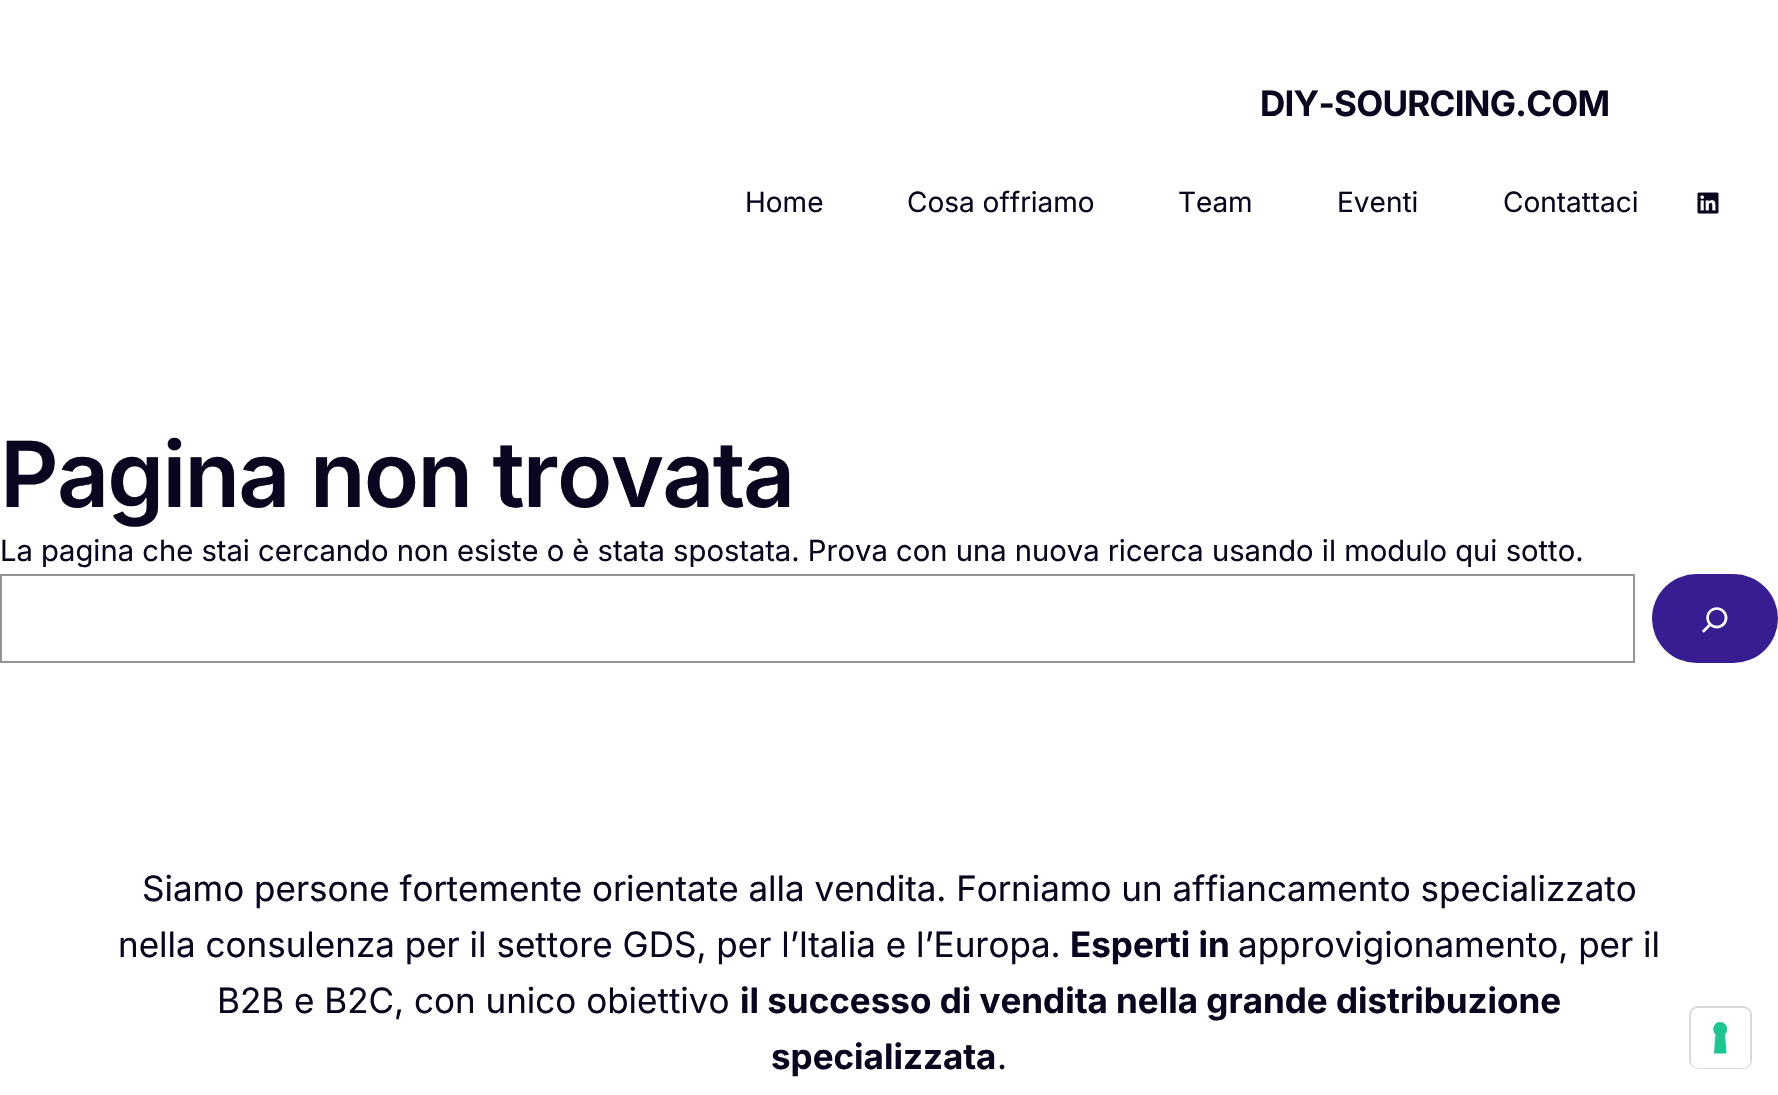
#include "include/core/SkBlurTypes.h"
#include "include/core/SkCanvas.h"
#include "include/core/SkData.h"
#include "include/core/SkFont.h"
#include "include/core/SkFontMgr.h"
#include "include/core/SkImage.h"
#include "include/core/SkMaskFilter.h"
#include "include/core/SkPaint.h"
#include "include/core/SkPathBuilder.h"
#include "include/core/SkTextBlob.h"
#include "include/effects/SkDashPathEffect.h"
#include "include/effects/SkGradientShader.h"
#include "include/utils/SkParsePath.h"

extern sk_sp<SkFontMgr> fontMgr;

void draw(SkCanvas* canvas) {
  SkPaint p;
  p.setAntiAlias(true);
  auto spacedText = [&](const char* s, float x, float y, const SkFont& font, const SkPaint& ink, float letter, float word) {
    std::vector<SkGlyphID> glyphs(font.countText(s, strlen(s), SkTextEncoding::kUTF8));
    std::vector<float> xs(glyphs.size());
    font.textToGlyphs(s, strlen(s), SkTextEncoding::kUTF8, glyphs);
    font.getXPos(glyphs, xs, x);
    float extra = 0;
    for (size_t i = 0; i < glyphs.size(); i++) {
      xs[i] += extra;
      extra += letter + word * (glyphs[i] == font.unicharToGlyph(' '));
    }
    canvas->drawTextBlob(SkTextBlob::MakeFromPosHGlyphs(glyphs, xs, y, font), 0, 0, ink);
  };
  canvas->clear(SK_ColorWHITE);
  canvas->drawImageRect(SkImages::DeferredFromEncodedData(SkData::MakeFromFileName("images/1.png")), SkRect::MakeLTRB(1697, 192, 1719, 214), SkSamplingOptions());
  p.setStyle(SkPaint::kStroke_Style);
  p.setStrokeWidth(2);
  p.setColor(SkColorSetRGB(148, 148, 148));
  canvas->drawRect(SkRect::MakeLTRB(1, 575, 1634, 662), p);
  p.setStyle(SkPaint::kFill_Style);
  p.setColor(SkColorSetRGB(56, 29, 146));
  canvas->drawRoundRect(SkRect::MakeLTRB(1652, 574, 1778, 663), 44.5f, 44.5f, p);
  canvas->drawImageRect(SkImages::DeferredFromEncodedData(SkData::MakeFromFileName("images/2.png")), SkRect::MakeLTRB(1702, 607, 1728, 633), SkSamplingOptions());
  p.setStyle(SkPaint::kStroke_Style);
  p.setColor(SkColorSetRGB(217, 217, 217));
  canvas->drawRoundRect(SkRect::MakeLTRB(1690, 1007, 1751, 1068), 8, 8, p);
  p.setStyle(SkPaint::kFill_Style);
  p.setColor(SK_ColorWHITE);
  canvas->drawRoundRect(SkRect::MakeLTRB(1691, 1008, 1750, 1068), 7, 7, p);
  p.setColor(SkColorSetRGB(28, 198, 145));
  canvas->drawPath(SkPathBuilder(SkPathFillType::kEvenOdd).moveTo(1720, 1022).cubicTo(1726.5f, 1022, 1729.5f, 1030, 1725, 1034.5f).lineTo(1726.5f, 1053.5f).lineTo(1714, 1053.5f).lineTo(1715.5f, 1034.5f).cubicTo(1711, 1030, 1714, 1022, 1720, 1022).close().detach(), p);
  SkFont font1(fontMgr->matchFamilyStyle("Inter", SkFontStyle::Bold()), 35);
  font1.setSubpixel(true);
  p.setColor(SkColorSetRGB(11, 6, 32));
  spacedText("DIY-SOURCING.COM", 1260, 116, font1, p, -0.75f, 0);
  SkFont font2(fontMgr->matchFamilyStyle("Inter", SkFontStyle::Normal()), 28);
  font2.setSubpixel(true);
  canvas->drawString("Home", 745, 212, font2, p);
  canvas->drawString("Cosa offriamo", 907, 212, font2, p);
  canvas->drawString("Team", 1178, 212, font2, p);
  canvas->drawString("Eventi", 1337, 212, font2, p);
  canvas->drawString("Contattaci", 1503, 212, font2, p);
  SkFont font3(fontMgr->matchFamilyStyle("Inter", SkFontStyle(600, SkFontStyle::kNormal_Width, SkFontStyle::kUpright_Slant)), 91);
  font3.setSubpixel(true);
  spacedText("Pagina non trovata", 0, 507, font3, p, -1.8f, 0);
  SkFont font4(fontMgr->matchFamilyStyle("Inter", SkFontStyle::Normal()), 29.2f);
  font4.setSubpixel(true);
  canvas->drawString("La pagina che stai cercando non esiste o è stata spostata. Prova con una nuova ricerca usando il modulo qui sotto.", 0, 561, font4, p);
  SkFont font5(fontMgr->matchFamilyStyle("Inter", SkFontStyle::Normal()), 35);
  font5.setSubpixel(true);
  canvas->drawString("Siamo persone fortemente orientate alla vendita. Forniamo un affiancamento specializzato", 142, 901, font5, p);
  canvas->drawString("nella consulenza per il settore GDS, per l’Italia e l’Europa.", 118, 957, font5, p);
  canvas->drawString("Esperti in", 1070, 957, font1, p);
  canvas->drawString("approvigionamento, per il", 1238, 957, font5, p);
  canvas->drawString("B2B e B2C, con unico obiettivo", 217, 1013, font5, p);
  canvas->drawString("il successo di vendita nella grande distribuzione", 740, 1013, font1, p);
  canvas->drawString("specializzata", 771, 1069, font1, p);
  canvas->drawString(".", 997, 1069, font5, p);
}
